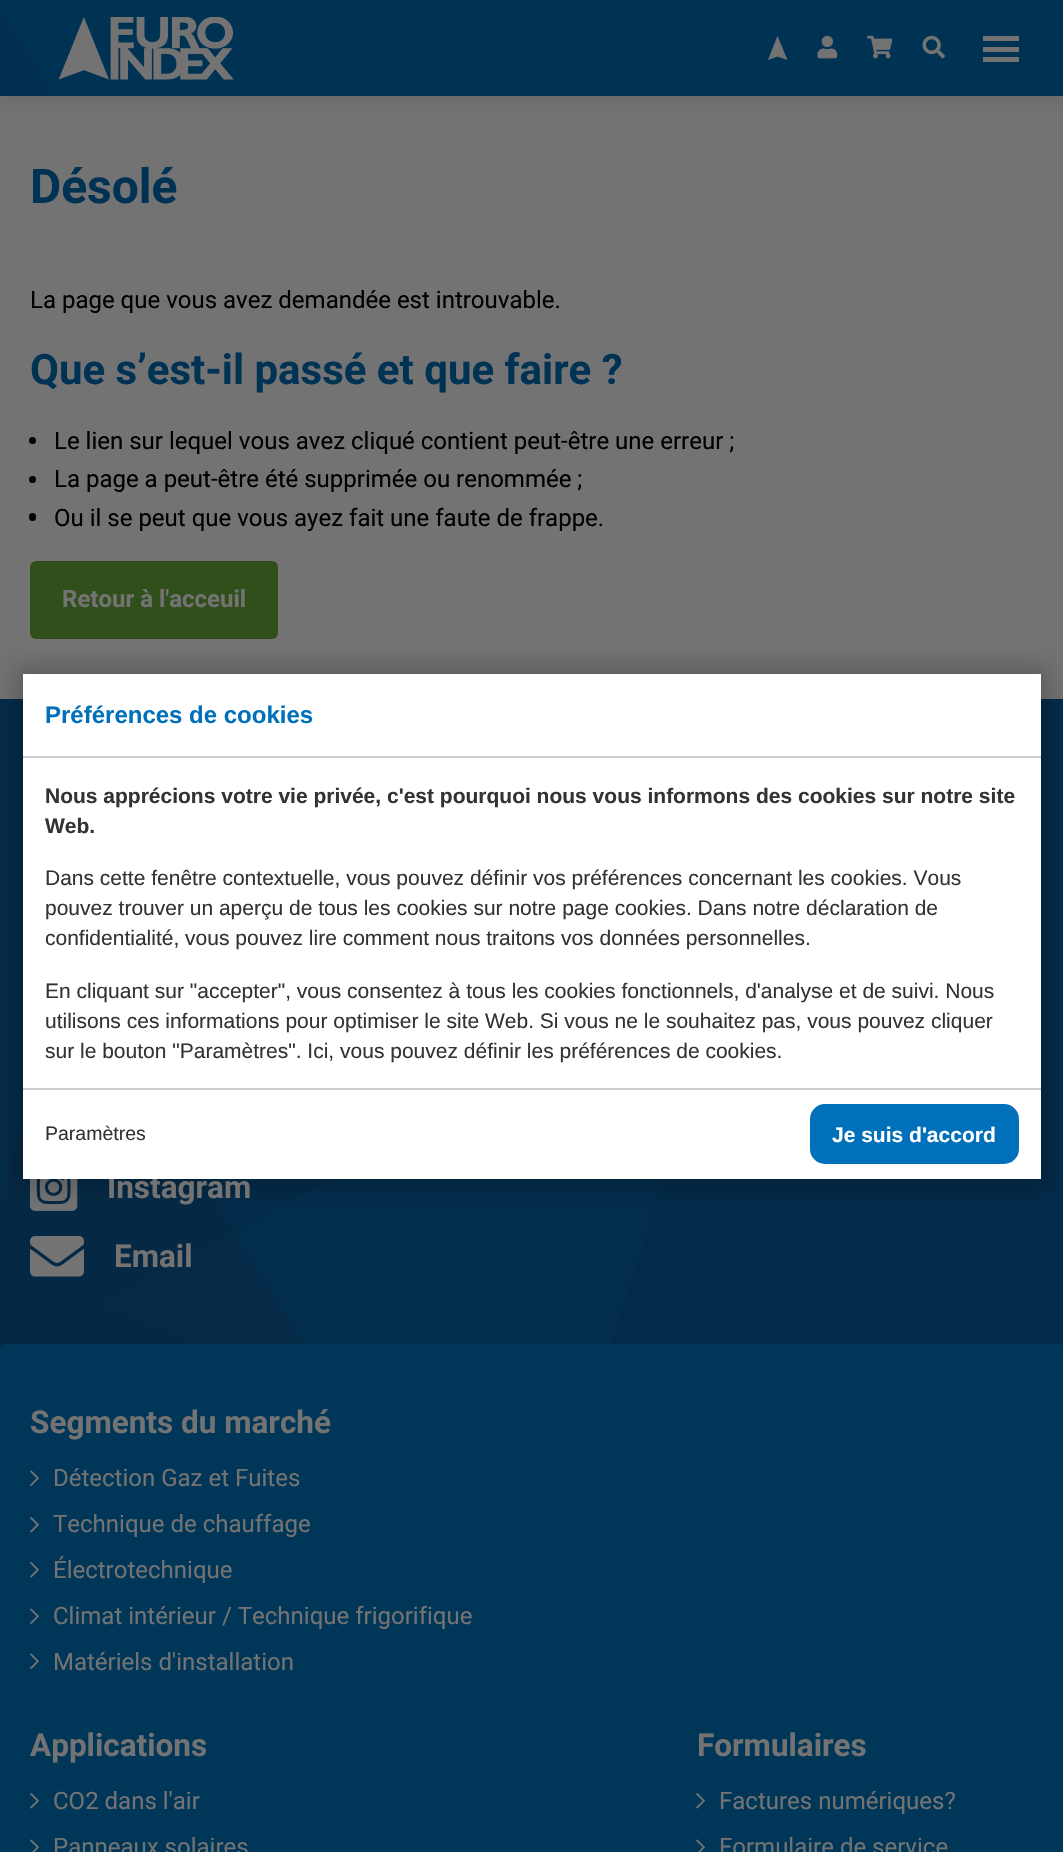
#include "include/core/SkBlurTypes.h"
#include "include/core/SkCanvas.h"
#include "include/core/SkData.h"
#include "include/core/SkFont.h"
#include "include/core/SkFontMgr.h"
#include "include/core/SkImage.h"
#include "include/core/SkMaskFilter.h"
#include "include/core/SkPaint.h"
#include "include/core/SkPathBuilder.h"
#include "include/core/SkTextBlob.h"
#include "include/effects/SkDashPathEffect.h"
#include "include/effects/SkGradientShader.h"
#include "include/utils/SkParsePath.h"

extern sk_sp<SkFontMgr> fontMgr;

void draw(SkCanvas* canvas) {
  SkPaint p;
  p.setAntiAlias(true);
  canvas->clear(SkColorSetRGB(115, 115, 115));
  p.setColor(SkColorSetARGB(36, 0, 0, 0));
  p.setMaskFilter(SkMaskFilter::MakeBlur(kNormal_SkBlurStyle, 10.5f));
  canvas->drawRect(SkRect::MakeLTRB(0, 0, 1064, 96), p);
  p.setMaskFilter(nullptr);
  p.setColor(SkColorSetRGB(0, 50, 84));
  canvas->drawRect(SkRect::MakeLTRB(0, 0, 1063, 96), p);
  canvas->drawImageRect(SkImages::DeferredFromEncodedData(SkData::MakeFromFileName("images/1.png")), SkRect::MakeLTRB(0, 7, 56, 96), SkSamplingOptions());
  canvas->drawImageRect(SkImages::DeferredFromEncodedData(SkData::MakeFromFileName("images/2.png")), SkRect::MakeLTRB(58, 17, 234, 80), SkSamplingOptions());
  p.setColor(SkColorSetRGB(115, 115, 115));
  canvas->drawPath(SkPathBuilder(SkPathFillType::kEvenOdd).moveTo(777, 37).lineTo(768, 60).lineTo(777.5f, 56.5f).lineTo(787.5f, 60).lineTo(777.5f, 36).close().detach(), p);
  canvas->drawImageRect(SkImages::DeferredFromEncodedData(SkData::MakeFromFileName("images/3.png")), SkRect::MakeLTRB(817, 35, 838, 59), SkSamplingOptions());
  canvas->drawImageRect(SkImages::DeferredFromEncodedData(SkData::MakeFromFileName("images/4.png")), SkRect::MakeLTRB(867, 35, 893, 59), SkSamplingOptions());
  canvas->drawImageRect(SkImages::DeferredFromEncodedData(SkData::MakeFromFileName("images/5.png")), SkRect::MakeLTRB(922, 35, 945, 59), SkSamplingOptions());
  canvas->drawRect(SkRect::MakeLTRB(983, 36, 1019, 41), p);
  canvas->drawRect(SkRect::MakeLTRB(983, 47, 1019, 52), p);
  canvas->drawRect(SkRect::MakeLTRB(983, 57, 1019, 62), p);
  p.setColor(SK_ColorBLACK);
  canvas->drawCircle(32.5f, 440.5f, 3.5f, p);
  canvas->drawCircle(32.5f, 479.5f, 3.5f, p);
  canvas->drawRoundRect(SkRect::MakeLTRB(29, 513, 36, 521), 3.5f, 3.5f, p);
  p.setColor(SkColorSetRGB(48, 79, 27));
  canvas->drawRoundRect(SkRect::MakeLTRB(30, 561, 278, 639), 6, 6, p);
  p.setColor(SkColorSetRGB(3, 43, 73));
  canvas->drawRect(SkRect::MakeLTRB(0, 699, 1063, 1350), p);
  canvas->drawImageRect(SkImages::DeferredFromEncodedData(SkData::MakeFromFileName("images/6.png")), SkRect::MakeLTRB(0, 1107, 665, 1350), SkSamplingOptions());
  canvas->drawImageRect(SkImages::DeferredFromEncodedData(SkData::MakeFromFileName("images/7.png")), SkRect::MakeLTRB(30, 1179, 78, 1211), SkSamplingOptions());
  canvas->drawImageRect(SkImages::DeferredFromEncodedData(SkData::MakeFromFileName("images/8.png")), SkRect::MakeLTRB(30, 1236, 84, 1277), SkSamplingOptions());
  p.setColor(SkColorSetRGB(0, 54, 87));
  canvas->drawRoundRect(SkRect::MakeLTRB(0, 1344, 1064, 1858), 6, 6, p);
  canvas->drawImageRect(SkImages::DeferredFromEncodedData(SkData::MakeFromFileName("images/9.png")), SkRect::MakeLTRB(30, 1470, 39, 1486), SkSamplingOptions());
  canvas->drawImageRect(SkImages::DeferredFromEncodedData(SkData::MakeFromFileName("images/10.png")), SkRect::MakeLTRB(30, 1517, 39, 1533), SkSamplingOptions());
  canvas->drawImageRect(SkImages::DeferredFromEncodedData(SkData::MakeFromFileName("images/10.png")), SkRect::MakeLTRB(30, 1562, 39, 1578), SkSamplingOptions());
  canvas->drawImageRect(SkImages::DeferredFromEncodedData(SkData::MakeFromFileName("images/9.png")), SkRect::MakeLTRB(30, 1608, 39, 1624), SkSamplingOptions());
  canvas->drawImageRect(SkImages::DeferredFromEncodedData(SkData::MakeFromFileName("images/9.png")), SkRect::MakeLTRB(30, 1653, 39, 1669), SkSamplingOptions());
  canvas->drawImageRect(SkImages::DeferredFromEncodedData(SkData::MakeFromFileName("images/10.png")), SkRect::MakeLTRB(30, 1793, 39, 1809), SkSamplingOptions());
  canvas->drawImageRect(SkImages::DeferredFromEncodedData(SkData::MakeFromFileName("images/11.png")), SkRect::MakeLTRB(30, 1839, 39, 1852), SkSamplingOptions());
  canvas->drawImageRect(SkImages::DeferredFromEncodedData(SkData::MakeFromFileName("images/10.png")), SkRect::MakeLTRB(696, 1793, 705, 1809), SkSamplingOptions());
  canvas->drawImageRect(SkImages::DeferredFromEncodedData(SkData::MakeFromFileName("images/11.png")), SkRect::MakeLTRB(696, 1839, 705, 1852), SkSamplingOptions());
  p.setColor(SkColorSetARGB(51, 0, 0, 0));
  p.setMaskFilter(SkMaskFilter::MakeBlur(kNormal_SkBlurStyle, 11));
  canvas->drawRect(SkRect::MakeLTRB(15, 666, 1049, 1187), p);
  p.setMaskFilter(nullptr);
  SkFont font1(fontMgr->matchFamilyStyle("Roboto", SkFontStyle::Bold()), 48);
  font1.setSubpixel(true);
  p.setColor(SkColorSetRGB(0, 50, 84));
  canvas->drawString("Désolé", 30, 203, font1, p);
  SkFont font2(fontMgr->matchFamilyStyle("Roboto", SkFontStyle::Normal()), 24);
  font2.setSubpixel(true);
  p.setColor(SK_ColorBLACK);
  canvas->drawString("La page que vous avez demandée est introuvable.", 30, 308, font2, p);
  SkFont font3(fontMgr->matchFamilyStyle("Roboto", SkFontStyle::Bold()), 42);
  font3.setSubpixel(true);
  p.setColor(SkColorSetRGB(0, 50, 84));
  canvas->drawString("Que s’est-il passé et que faire ?", 30, 384, font3, p);
  p.setColor(SK_ColorBLACK);
  canvas->drawString("Le lien sur lequel vous avez cliqué contient peut-être une erreur ;", 54, 449, font2, p);
  canvas->drawString("La page a peut-être été supprimée ou renommée ;", 54, 487, font2, p);
  canvas->drawString("Ou il se peut que vous ayez fait une faute de frappe.", 54, 526, font2, p);
  SkFont font4(fontMgr->matchFamilyStyle("Roboto", SkFontStyle::Bold()), 24);
  font4.setSubpixel(true);
  p.setColor(SkColorSetRGB(115, 115, 115));
  canvas->drawString("Retour à l'acceuil", 62, 607, font4, p);
  SkFont font5(fontMgr->matchFamilyStyle("Roboto", SkFontStyle::Bold()), 31.5f);
  font5.setSubpixel(true);
  canvas->drawString("Instagram", 107, 1198, font5, p);
  canvas->drawString("Email", 114, 1267, font5, p);
  canvas->drawString("Segments du marché", 30, 1433, font5, p);
  canvas->drawString("Détection Gaz et Fuites", 53, 1486, font2, p);
  canvas->drawString("Technique de chauffage", 53, 1532, font2, p);
  canvas->drawString("Électrotechnique", 53, 1578, font2, p);
  canvas->drawString("Climat intérieur / Technique frigorifique", 53, 1624, font2, p);
  canvas->drawString("Matériels d'installation", 53, 1670, font2, p);
  canvas->drawString("Applications", 30, 1756, font5, p);
  canvas->drawString("CO2 dans l'air", 53, 1809, font2, p);
  canvas->drawString("Panneaux solaires", 53, 1855, font2, p);
  canvas->drawString("Formulaires", 697, 1756, font5, p);
  canvas->drawString("Factures numériques?", 719, 1809, font2, p);
  canvas->drawString("Formulaire de service", 719, 1855, font2, p);
  p.setColor(SK_ColorWHITE);
  canvas->drawRect(SkRect::MakeLTRB(23, 674, 1041, 1179), p);
  p.setColor(SkColorSetRGB(204, 204, 204));
  canvas->drawRect(SkRect::MakeLTRB(23, 756, 1041, 758), p);
  SkFont font6(fontMgr->matchFamilyStyle("Liberation Sans", SkFontStyle::Bold()), 24);
  font6.setSubpixel(true);
  p.setColor(SkColorSetRGB(0, 112, 186));
  canvas->drawString("Préférences de cookies", 45, 723, font6, p);
  SkFont font7(fontMgr->matchFamilyStyle("Liberation Sans", SkFontStyle::Bold()), 21);
  font7.setSubpixel(true);
  p.setColor(SkColorSetRGB(51, 51, 51));
  canvas->drawString("Nous apprécions votre vie privée, c'est pourquoi nous vous informons des cookies sur notre site", 45, 803, font7, p);
  canvas->drawString("Web.", 45, 833, font7, p);
  SkFont font8(fontMgr->matchFamilyStyle("Liberation Sans", SkFontStyle::Normal()), 21);
  font8.setSubpixel(true);
  canvas->drawString("Dans cette fenêtre contextuelle, vous pouvez définir vos préférences concernant les cookies. Vous", 45, 885, font8, p);
  canvas->drawString("pouvez trouver un aperçu de tous les cookies sur notre page cookies. Dans notre déclaration de", 45, 915, font8, p);
  canvas->drawString("confidentialité, vous pouvez lire comment nous traitons vos données personnelles.", 45, 945, font8, p);
  canvas->drawString("En cliquant sur \"accepter\", vous consentez à tous les cookies fonctionnels, d'analyse et de suivi. Nous", 45, 998, font8, p);
  canvas->drawString("utilisons ces informations pour optimiser le site Web. Si vous ne le souhaitez pas, vous pouvez cliquer", 45, 1028, font8, p);
  canvas->drawString("sur le bouton \"Paramètres\". Ici, vous pouvez définir les préférences de cookies.", 45, 1058, font8, p);
  p.setColor(SkColorSetRGB(204, 204, 204));
  canvas->drawRect(SkRect::MakeLTRB(23, 1088, 1041, 1090), p);
  SkFont font9(fontMgr->matchFamilyStyle("Liberation Sans", SkFontStyle::Normal()), 19.5f);
  font9.setSubpixel(true);
  p.setColor(SkColorSetRGB(51, 51, 51));
  canvas->drawString("Paramètres", 45, 1140, font9, p);
  p.setColor(SkColorSetRGB(0, 112, 186));
  canvas->drawRoundRect(SkRect::MakeLTRB(811, 1105, 1018, 1163), 14, 14, p);
  p.setStyle(SkPaint::kStroke_Style);
  p.setStrokeWidth(2);
  canvas->drawRoundRect(SkRect::MakeLTRB(811, 1105, 1018, 1163), 14, 14, p);
  p.setStyle(SkPaint::kFill_Style);
  p.setColor(SK_ColorWHITE);
  canvas->drawString("Je suis d'accord", 832, 1142, font7, p);
}
